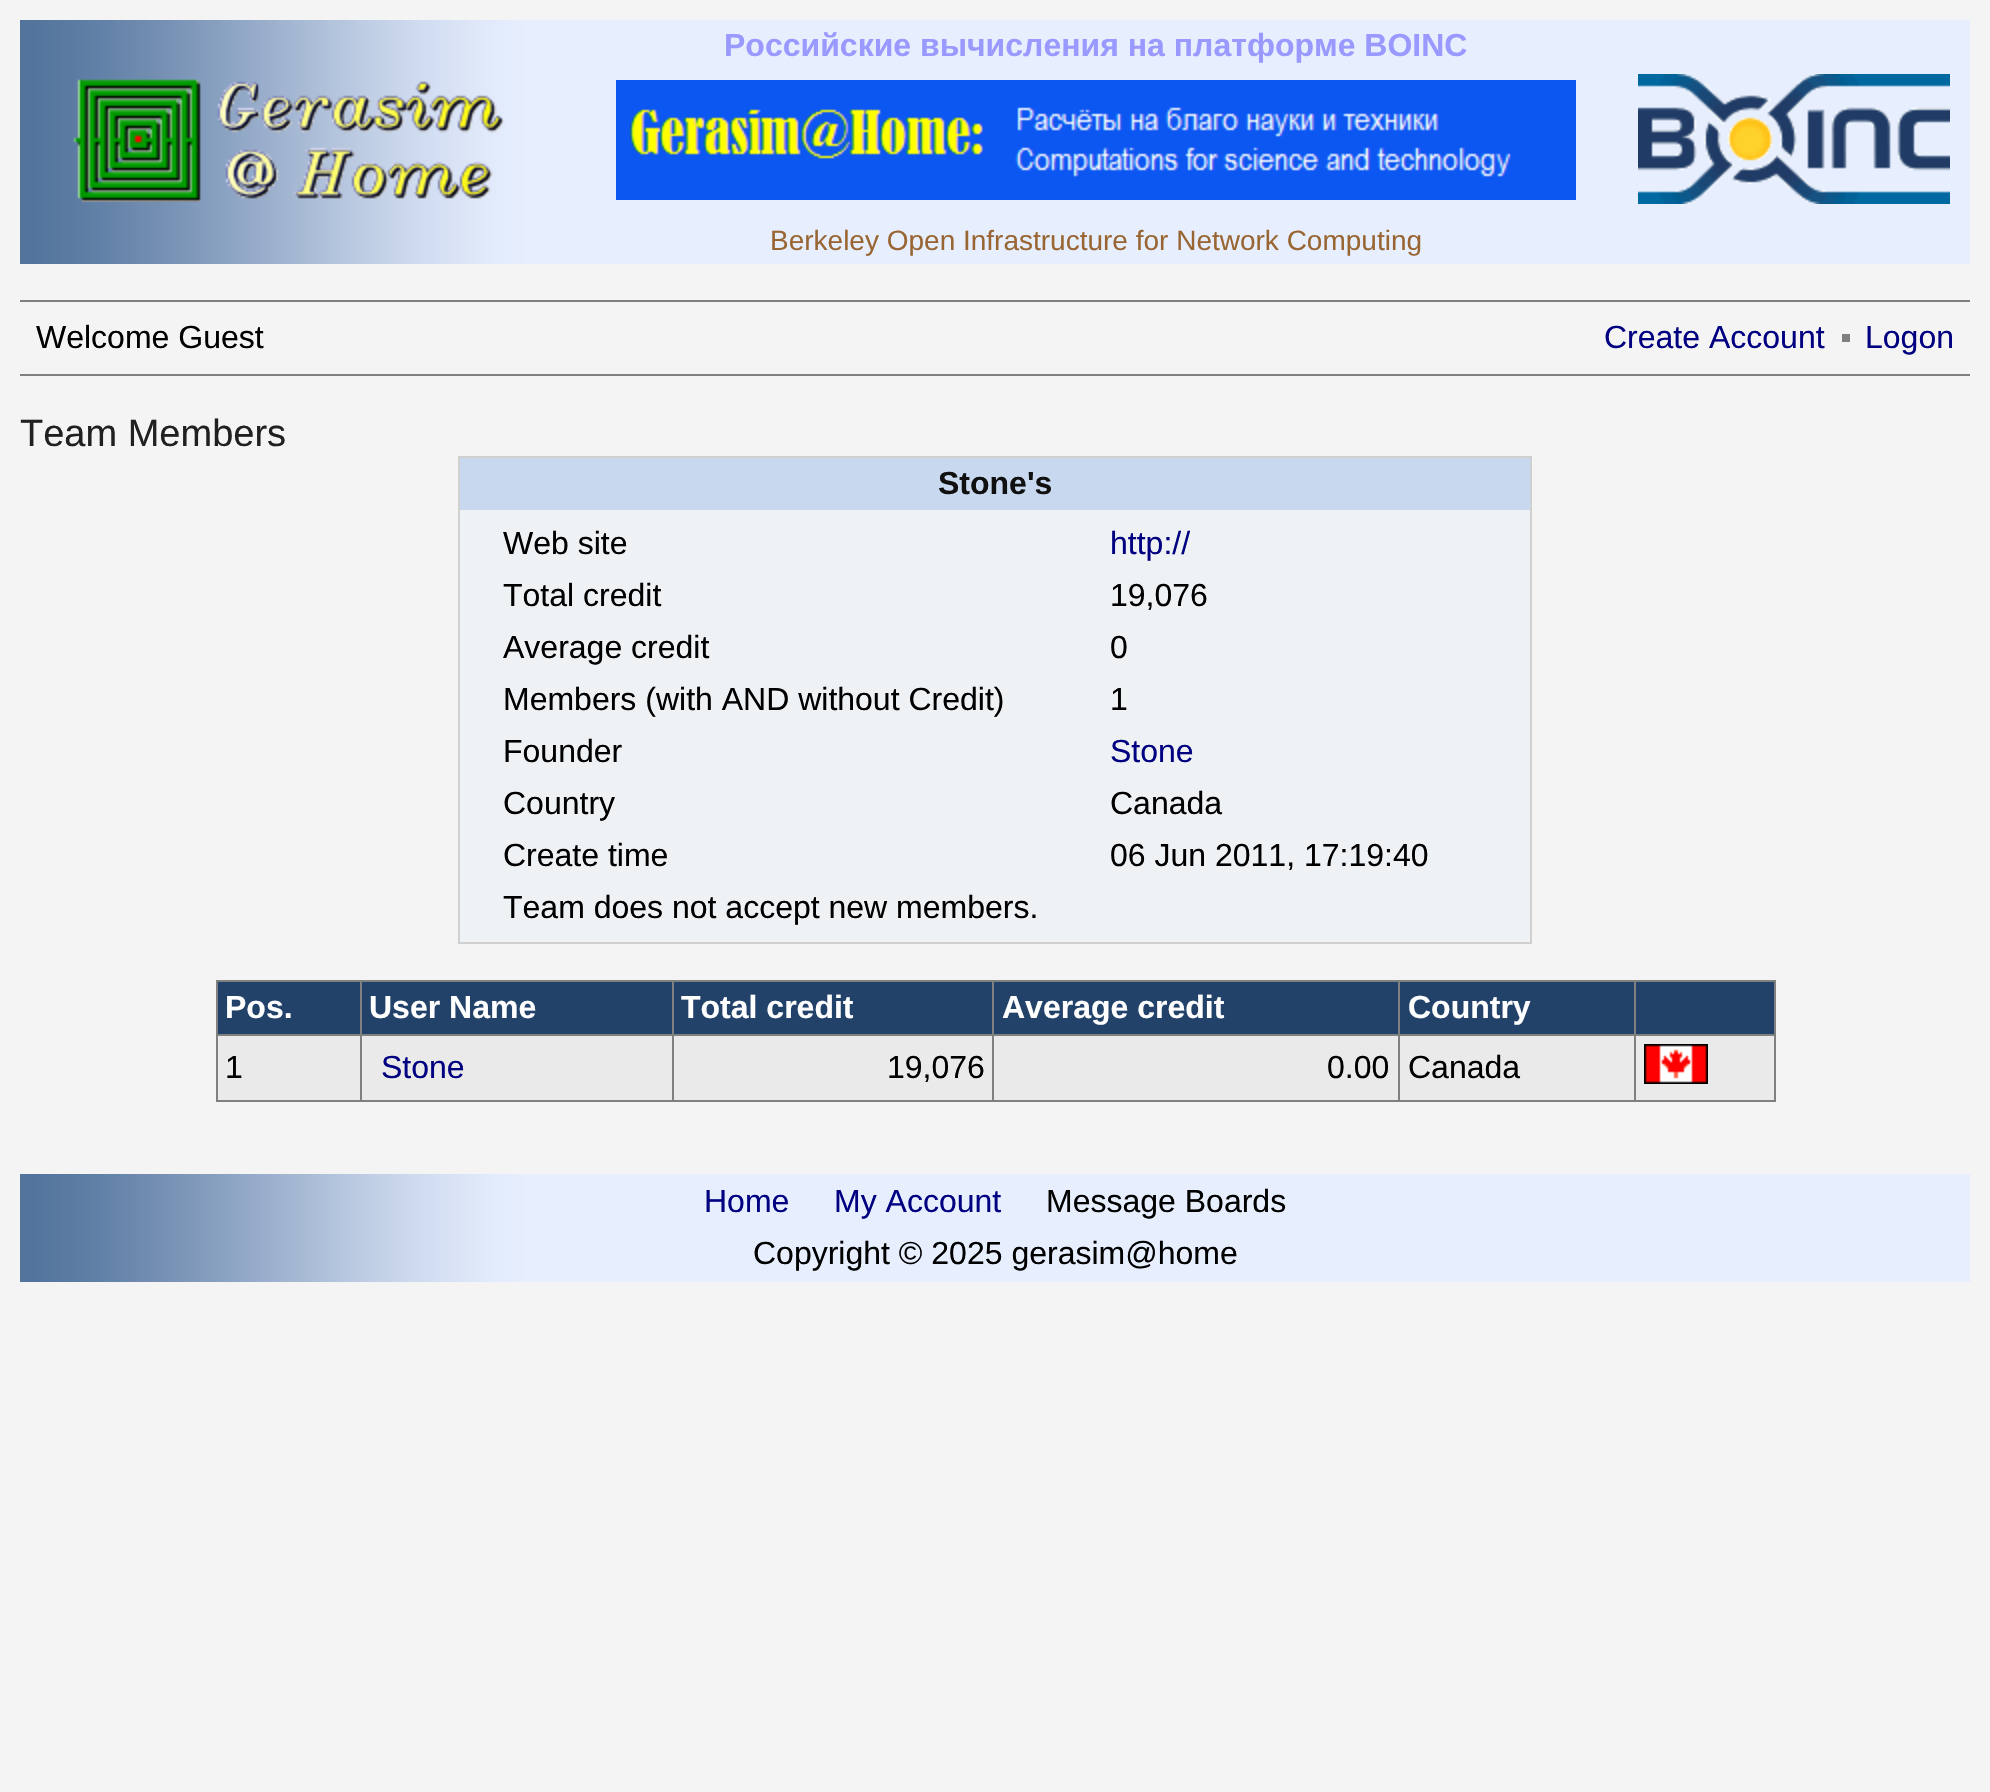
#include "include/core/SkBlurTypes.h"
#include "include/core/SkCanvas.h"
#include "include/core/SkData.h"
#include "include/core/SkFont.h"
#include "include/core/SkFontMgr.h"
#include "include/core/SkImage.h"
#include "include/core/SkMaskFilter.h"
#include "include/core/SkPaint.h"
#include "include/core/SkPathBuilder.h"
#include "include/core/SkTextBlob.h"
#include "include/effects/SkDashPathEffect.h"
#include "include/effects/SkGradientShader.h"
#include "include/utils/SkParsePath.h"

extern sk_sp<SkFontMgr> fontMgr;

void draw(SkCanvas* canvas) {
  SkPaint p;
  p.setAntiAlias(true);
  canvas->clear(SkColorSetRGB(244, 244, 244));
  canvas->drawImageRect(SkImages::DeferredFromEncodedData(SkData::MakeFromFileName("images/1.png")), SkRect::MakeLTRB(20, 20, 1970, 264), SkSamplingOptions());
  canvas->drawImageRect(SkImages::DeferredFromEncodedData(SkData::MakeFromFileName("images/2.png")), SkRect::MakeLTRB(73, 79, 505, 202), SkSamplingOptions());
  canvas->drawImageRect(SkImages::DeferredFromEncodedData(SkData::MakeFromFileName("images/3.png")), SkRect::MakeLTRB(1638, 74, 1950, 204), SkSamplingOptions());
  canvas->drawImageRect(SkImages::DeferredFromEncodedData(SkData::MakeFromFileName("images/4.png")), SkRect::MakeLTRB(616, 80, 1576, 200), SkSamplingOptions());
  p.setColor(SkColorSetRGB(128, 128, 128));
  canvas->drawRect(SkRect::MakeLTRB(20, 300, 1970, 302), p);
  canvas->drawRect(SkRect::MakeLTRB(20, 374, 1970, 376), p);
  canvas->drawRect(SkRect::MakeLTRB(1842, 334, 1850, 342), p);
  p.setColor(SkColorSetRGB(238, 242, 245));
  canvas->drawRect(SkRect::MakeLTRB(460, 510, 1530, 942), p);
  p.setColor(SkColorSetRGB(208, 208, 208));
  canvas->drawRect(SkRect::MakeLTRB(458, 456, 1532, 458), p);
  canvas->drawRect(SkRect::MakeLTRB(1530, 456, 1532, 944), p);
  canvas->drawRect(SkRect::MakeLTRB(458, 942, 1532, 944), p);
  canvas->drawRect(SkRect::MakeLTRB(458, 456, 460, 944), p);
  p.setColor(SkColorSetRGB(200, 216, 239));
  canvas->drawRect(SkRect::MakeLTRB(460, 458, 1530, 510), p);
  p.setColor(SkColorSetRGB(128, 128, 128));
  canvas->drawRect(SkRect::MakeLTRB(218, 980, 1776, 1100), p);
  canvas->drawRect(SkRect::MakeLTRB(216, 1100, 1776, 1102), p);
  canvas->drawRect(SkRect::MakeLTRB(216, 980, 218, 1102), p);
  p.setColor(SkColorSetRGB(34, 66, 105));
  canvas->drawRect(SkRect::MakeLTRB(218, 982, 1774, 1034), p);
  p.setColor(SkColorSetRGB(234, 234, 234));
  canvas->drawRect(SkRect::MakeLTRB(218, 1036, 1774, 1100), p);
  p.setColor(SkColorSetRGB(128, 128, 128));
  canvas->drawRect(SkRect::MakeLTRB(360, 980, 362, 1102), p);
  canvas->drawRect(SkRect::MakeLTRB(672, 980, 674, 1102), p);
  canvas->drawRect(SkRect::MakeLTRB(992, 980, 994, 1102), p);
  canvas->drawRect(SkRect::MakeLTRB(1398, 980, 1400, 1102), p);
  canvas->drawRect(SkRect::MakeLTRB(1634, 980, 1636, 1102), p);
  canvas->drawImageRect(SkImages::DeferredFromEncodedData(SkData::MakeFromFileName("images/5.png")), SkRect::MakeLTRB(1644, 1044, 1708, 1084), SkSamplingOptions());
  canvas->drawImageRect(SkImages::DeferredFromEncodedData(SkData::MakeFromFileName("images/6.png")), SkRect::MakeLTRB(20, 1174, 1970, 1282), SkSamplingOptions());
  SkFont font1(fontMgr->matchFamilyStyle("Liberation Sans", SkFontStyle::Bold()), 32);
  font1.setSubpixel(true);
  p.setColor(SkColorSetRGB(153, 153, 255));
  canvas->drawString("Российские вычисления на платформе BOINC", 724, 56, font1, p);
  SkFont font2(fontMgr->matchFamilyStyle("Liberation Sans", SkFontStyle::Normal()), 28);
  font2.setSubpixel(true);
  p.setColor(SkColorSetRGB(153, 102, 51));
  canvas->drawString("Berkeley Open Infrastructure for Network Computing", 770, 250, font2, p);
  SkFont font3(fontMgr->matchFamilyStyle("Liberation Sans", SkFontStyle::Normal()), 32);
  font3.setSubpixel(true);
  p.setColor(SK_ColorBLACK);
  canvas->drawString("Welcome Guest", 36, 348, font3, p);
  p.setColor(SkColorSetRGB(0, 0, 128));
  canvas->drawString("Create Account", 1604, 348, font3, p);
  canvas->drawString("Logon", 1865, 348, font3, p);
  SkFont font4(fontMgr->matchFamilyStyle("Liberation Sans", SkFontStyle::Normal()), 38);
  font4.setSubpixel(true);
  p.setColor(SkColorSetRGB(32, 32, 32));
  canvas->drawString("Team Members", 20, 446, font4, p);
  p.setColor(SkColorSetRGB(16, 16, 16));
  canvas->drawString("Stone's", 938, 494, font1, p);
  p.setColor(SK_ColorBLACK);
  canvas->drawString("Web site", 503, 554, font3, p);
  p.setColor(SkColorSetRGB(0, 0, 128));
  canvas->drawString("http://", 1110, 554, font3, p);
  p.setColor(SK_ColorBLACK);
  canvas->drawString("Total credit", 503, 606, font3, p);
  canvas->drawString("19,076", 1110, 606, font3, p);
  canvas->drawString("Average credit", 503, 658, font3, p);
  canvas->drawString("0", 1110, 658, font3, p);
  canvas->drawString("Members (with AND without Credit)", 503, 710, font3, p);
  canvas->drawString("1", 1110, 710, font3, p);
  canvas->drawString("Founder", 503, 762, font3, p);
  p.setColor(SkColorSetRGB(0, 0, 128));
  canvas->drawString("Stone", 1110, 762, font3, p);
  p.setColor(SK_ColorBLACK);
  canvas->drawString("Country", 503, 814, font3, p);
  canvas->drawString("Canada", 1110, 814, font3, p);
  canvas->drawString("Create time", 503, 866, font3, p);
  canvas->drawString("06 Jun 2011, 17:19:40", 1110, 866, font3, p);
  canvas->drawString("Team does not accept new members.", 503, 918, font3, p);
  p.setColor(SK_ColorWHITE);
  canvas->drawString("Pos.", 225, 1018, font1, p);
  canvas->drawString("User Name", 369, 1018, font1, p);
  canvas->drawString("Total credit", 681, 1018, font1, p);
  canvas->drawString("Average credit", 1002, 1018, font1, p);
  canvas->drawString("Country", 1408, 1018, font1, p);
  p.setColor(SK_ColorBLACK);
  canvas->drawString("1", 225, 1078, font3, p);
  p.setColor(SkColorSetRGB(0, 0, 128));
  canvas->drawString("Stone", 381, 1078, font3, p);
  p.setColor(SK_ColorBLACK);
  canvas->drawString("19,076", 887, 1078, font3, p);
  canvas->drawString("0.00", 1327, 1078, font3, p);
  canvas->drawString("Canada", 1408, 1078, font3, p);
  p.setColor(SkColorSetRGB(0, 0, 128));
  canvas->drawString("Home", 704, 1212, font3, p);
  canvas->drawString("My Account", 834, 1212, font3, p);
  p.setColor(SK_ColorBLACK);
  canvas->drawString("Message Boards", 1046, 1212, font3, p);
  canvas->drawString("Copyright © 2025 gerasim@home", 753, 1264, font3, p);
}
